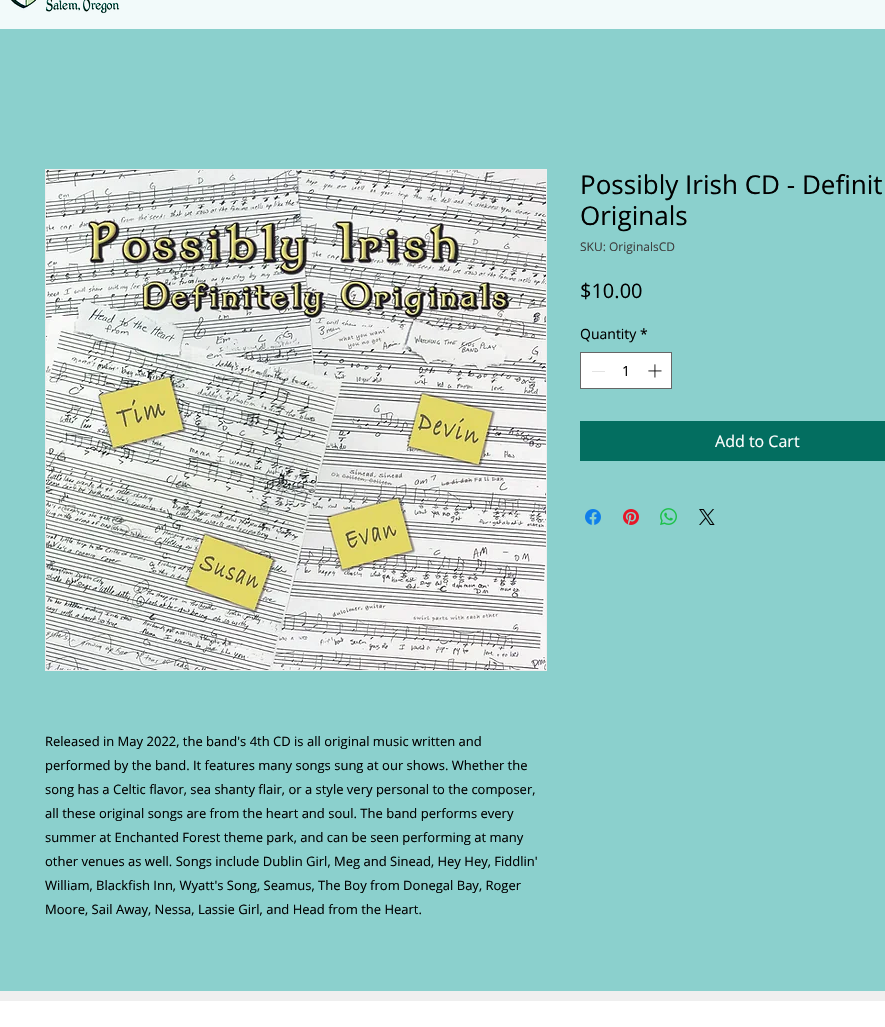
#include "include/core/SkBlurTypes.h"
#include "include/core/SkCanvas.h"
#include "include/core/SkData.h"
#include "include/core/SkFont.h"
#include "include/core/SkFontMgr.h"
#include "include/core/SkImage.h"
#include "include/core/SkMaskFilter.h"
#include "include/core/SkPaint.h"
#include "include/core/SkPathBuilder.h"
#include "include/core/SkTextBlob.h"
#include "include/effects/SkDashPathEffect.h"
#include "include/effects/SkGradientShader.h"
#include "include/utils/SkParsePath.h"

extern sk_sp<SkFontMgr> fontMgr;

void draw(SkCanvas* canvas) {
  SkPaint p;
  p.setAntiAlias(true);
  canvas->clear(SkColorSetRGB(139, 208, 205));
  p.setColor(SkColorSetRGB(242, 250, 250));
  canvas->drawRect(SkRect::MakeLTRB(0, 0, 885, 29), p);
  canvas->drawImageRect(SkImages::DeferredFromEncodedData(SkData::MakeFromFileName("images/1.png")), SkRect::MakeLTRB(11, 0, 120, 14), SkSamplingOptions());
  p.setColor(SK_ColorWHITE);
  canvas->drawRect(SkRect::MakeLTRB(580.5f, 352.5f, 671.5f, 388.5f), p);
  p.setStyle(SkPaint::kStroke_Style);
  p.setStrokeWidth(1);
  p.setColor(SkColorSetRGB(102, 102, 102));
  canvas->drawRect(SkRect::MakeLTRB(580.5f, 352.5f, 671.5f, 388.5f), p);
  p.setStyle(SkPaint::kFill_Style);
  p.setColor(SkColorSetRGB(227, 227, 227));
  canvas->drawRect(SkRect::MakeLTRB(592, 371, 605, 372), p);
  canvas->drawImageRect(SkImages::DeferredFromEncodedData(SkData::MakeFromFileName("images/2.png")), SkRect::MakeLTRB(648, 364, 662, 378), SkSamplingOptions());
  p.setColor(SkColorSetRGB(3, 110, 96));
  canvas->drawRect(SkRect::MakeLTRB(580, 421, 885, 461), p);
  canvas->drawImageRect(SkImages::DeferredFromEncodedData(SkData::MakeFromFileName("images/3.png")), SkRect::MakeLTRB(585, 509, 601, 525), SkSamplingOptions());
  canvas->drawImageRect(SkImages::DeferredFromEncodedData(SkData::MakeFromFileName("images/4.png")), SkRect::MakeLTRB(623, 509, 639, 525), SkSamplingOptions());
  canvas->drawImageRect(SkImages::DeferredFromEncodedData(SkData::MakeFromFileName("images/5.png")), SkRect::MakeLTRB(660, 508, 677, 525), SkSamplingOptions());
  canvas->drawImageRect(SkImages::DeferredFromEncodedData(SkData::MakeFromFileName("images/6.png")), SkRect::MakeLTRB(699, 509, 715, 525), SkSamplingOptions());
  p.setStyle(SkPaint::kStroke_Style);
  p.setColor(SkColorSetRGB(239, 239, 239));
  canvas->drawRect(SkRect::MakeLTRB(45.5f, 169.5f, 546.5f, 670.5f), p);
  canvas->drawImageRect(SkImages::DeferredFromEncodedData(SkData::MakeFromFileName("images/7.png")), SkRect::MakeLTRB(46, 170, 546, 670), SkSamplingOptions());
  p.setStyle(SkPaint::kFill_Style);
  p.setColor(SK_ColorWHITE);
  canvas->drawRect(SkRect::MakeLTRB(0, 1001, 885, 1027), p);
  p.setColor(SkColorSetRGB(239, 239, 239));
  canvas->drawRect(SkRect::MakeLTRB(0, 991, 885, 1001), p);
  SkFont font1(fontMgr->matchFamilyStyle("Open Sans", SkFontStyle::Normal()), 26);
  font1.setSubpixel(true);
  p.setColor(SK_ColorBLACK);
  canvas->drawString("Possibly Irish CD - Definit", 580, 194, font1, p);
  canvas->drawString("Originals", 580, 225, font1, p);
  SkFont font2(fontMgr->matchFamilyStyle("Open Sans", SkFontStyle::Normal()), 12);
  font2.setSubpixel(true);
  p.setColor(SkColorSetRGB(62, 62, 62));
  canvas->drawString("SKU: OriginalsCD", 580, 251, font2, p);
  SkFont font3(fontMgr->matchFamilyStyle("Open Sans", SkFontStyle::Normal()), 20);
  font3.setSubpixel(true);
  p.setColor(SK_ColorBLACK);
  canvas->drawString("$10.00", 580, 298, font3, p);
  SkFont font4(fontMgr->matchFamilyStyle("Open Sans", SkFontStyle::Normal()), 14);
  font4.setSubpixel(true);
  canvas->drawString("Quantity", 580, 339, font4, p);
  canvas->drawString("*", 640, 339, font4, p);
  canvas->drawString("1", 622, 376, font4, p);
  SkFont font5(fontMgr->matchFamilyStyle("Open Sans", SkFontStyle::Normal()), 16);
  font5.setSubpixel(true);
  p.setColor(SK_ColorWHITE);
  canvas->drawString("Add to Cart", 715, 447, font5, p);
  SkFont font6(fontMgr->matchFamilyStyle("Open Sans", SkFontStyle::Normal()), 13);
  font6.setSubpixel(true);
  p.setColor(SK_ColorBLACK);
  canvas->drawString("Released in May 2022, the band's 4th CD is all original music written and", 45, 746, font6, p);
  canvas->drawString("performed by the band. It features many songs sung at our shows. Whether the", 45, 770, font6, p);
  canvas->drawString("song has a Celtic flavor, sea shanty flair, or a style very personal to the composer,", 45, 794, font6, p);
  canvas->drawString("all these original songs are from the heart and soul. The band performs every", 45, 818, font6, p);
  canvas->drawString("summer at Enchanted Forest theme park, and can be seen performing at many", 45, 842, font6, p);
  canvas->drawString("other venues as well. Songs include Dublin Girl, Meg and Sinead, Hey Hey, Fiddlin'", 45, 866, font6, p);
  canvas->drawString("William, Blackfish Inn, Wyatt's Song, Seamus, The Boy from Donegal Bay, Roger", 45, 890, font6, p);
  canvas->drawString("Moore, Sail Away, Nessa, Lassie Girl, and Head from the Heart.", 45, 914, font6, p);
}
